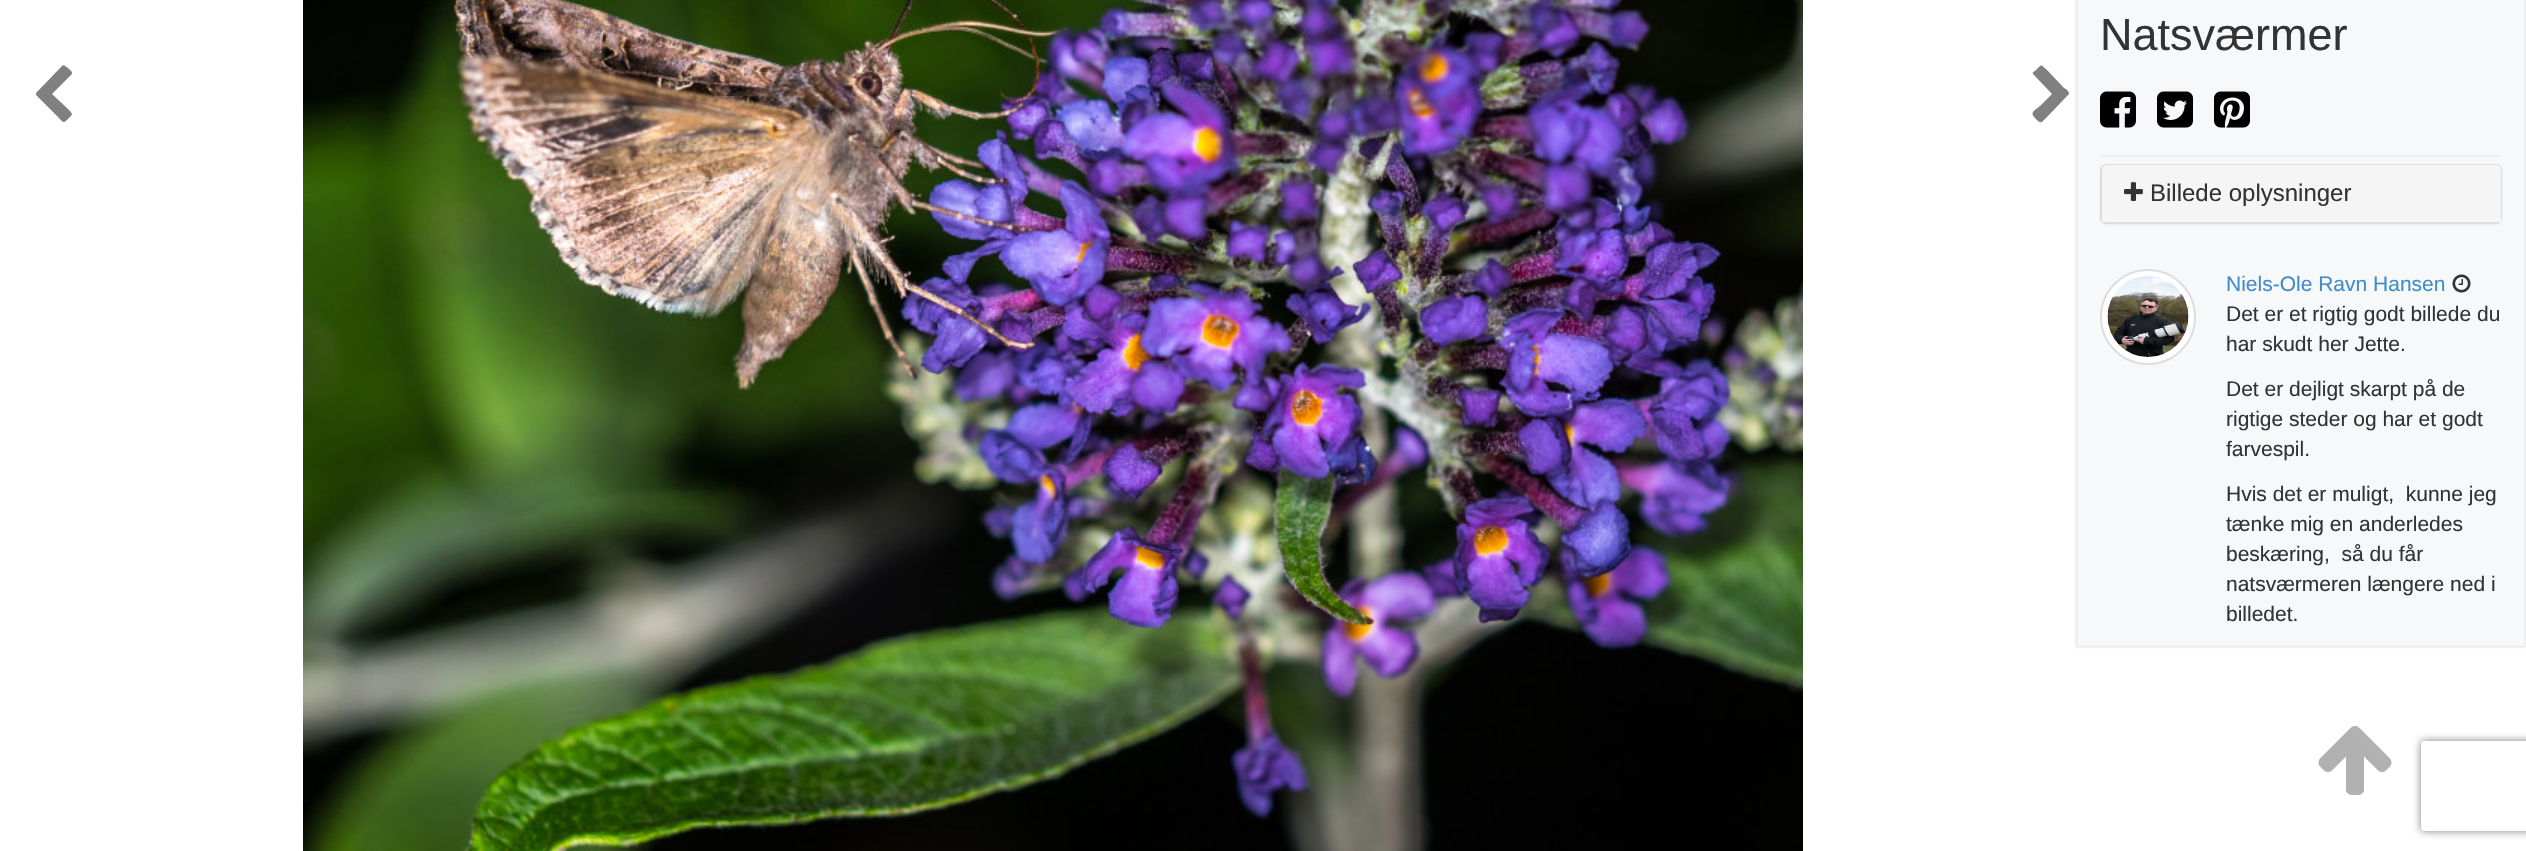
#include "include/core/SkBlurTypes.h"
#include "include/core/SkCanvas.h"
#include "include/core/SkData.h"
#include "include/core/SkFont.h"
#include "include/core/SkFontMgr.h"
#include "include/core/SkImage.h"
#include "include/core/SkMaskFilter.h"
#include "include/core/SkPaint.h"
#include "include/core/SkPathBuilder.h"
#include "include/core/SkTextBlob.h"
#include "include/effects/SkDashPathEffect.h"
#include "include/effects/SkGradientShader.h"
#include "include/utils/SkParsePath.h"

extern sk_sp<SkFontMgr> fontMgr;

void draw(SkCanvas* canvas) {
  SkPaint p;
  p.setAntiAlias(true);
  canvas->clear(SK_ColorWHITE);
  p.setColor(SkColorSetRGB(128, 128, 128));
  canvas->drawPath(SkPathBuilder().moveTo(71, 75).lineTo(52, 94).lineTo(68, 109).cubicTo(73, 114, 73, 114, 69, 118).cubicTo(63, 124, 64, 123, 58, 117).lineTo(36, 95).lineTo(36, 93).lineTo(62, 66).cubicTo(64, 64, 66, 67, 68, 68).lineTo(72, 72).cubicTo(72, 73, 72, 74, 71, 75).close().detach(), p);
  canvas->drawImageRect(SkImages::DeferredFromEncodedData(SkData::MakeFromFileName("images/1.png")), SkRect::MakeLTRB(303, 0, 1803, 851), SkSamplingOptions());
  canvas->drawPath(SkPathBuilder().moveTo(2068, 95).lineTo(2047, 117).cubicTo(2040, 124, 2041, 124, 2034, 117).cubicTo(2030, 112, 2035, 110, 2040, 106).lineTo(2052, 94).lineTo(2033, 74).cubicTo(2032, 72, 2035, 71, 2036, 70).cubicTo(2042, 64, 2040, 64, 2047, 70).lineTo(2064, 88).cubicTo(2065, 88, 2070, 92, 2069, 94).close().detach(), p);
  p.setColor(SkColorSetARGB(38, 0, 0, 0));
  p.setMaskFilter(SkMaskFilter::MakeBlur(kNormal_SkBlurStyle, 1));
  canvas->drawRect(SkRect::MakeLTRB(2076, -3, 2526, 647), p);
  p.setMaskFilter(nullptr);
  p.setColor(SkColorSetRGB(247, 248, 250));
  canvas->drawRect(SkRect::MakeLTRB(2077, -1, 2525, 646), p);
  p.setStyle(SkPaint::kStroke_Style);
  p.setStrokeWidth(2);
  p.setColor(SkColorSetRGB(238, 239, 242));
  canvas->drawRect(SkRect::MakeLTRB(2077, -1, 2525, 646), p);
  canvas->drawImageRect(SkImages::DeferredFromEncodedData(SkData::MakeFromFileName("images/2.png")), SkRect::MakeLTRB(2100, 91, 2136, 128), SkSamplingOptions());
  canvas->drawImageRect(SkImages::DeferredFromEncodedData(SkData::MakeFromFileName("images/3.png")), SkRect::MakeLTRB(2157, 91, 2193, 128), SkSamplingOptions());
  canvas->drawImageRect(SkImages::DeferredFromEncodedData(SkData::MakeFromFileName("images/4.png")), SkRect::MakeLTRB(2214, 91, 2250, 128), SkSamplingOptions());
  p.setStyle(SkPaint::kFill_Style);
  p.setColor(SkColorSetRGB(238, 238, 238));
  canvas->drawRect(SkRect::MakeLTRB(2100, 155, 2502, 157), p);
  p.setColor(SkColorSetARGB(13, 0, 0, 0));
  p.setMaskFilter(SkMaskFilter::MakeBlur(kNormal_SkBlurStyle, 1));
  canvas->drawRoundRect(SkRect::MakeLTRB(2100, 165, 2502, 225), 6, 6, p);
  p.setMaskFilter(nullptr);
  p.setStyle(SkPaint::kStroke_Style);
  p.setColor(SkColorSetRGB(221, 221, 221));
  canvas->drawRoundRect(SkRect::MakeLTRB(2101, 165, 2501, 223), 5, 5, p);
  p.setStyle(SkPaint::kFill_Style);
  p.setColor(SkColorSetRGB(245, 245, 245));
  canvas->drawPath(SkPathBuilder().moveTo(2107, 165).lineTo(2496, 165).cubicTo(2499, 165, 2501, 167, 2501, 170).lineTo(2501, 222).lineTo(2102, 222).lineTo(2102, 170).cubicTo(2102, 167, 2104, 165, 2107, 165).close().detach(), p);
  canvas->drawImageRect(SkImages::DeferredFromEncodedData(SkData::MakeFromFileName("images/5.png")), SkRect::MakeLTRB(2124, 182, 2143, 201), SkSamplingOptions());
  p.setColor(SK_ColorWHITE);
  canvas->drawCircle(2148, 317, 47, p);
  p.setStyle(SkPaint::kStroke_Style);
  p.setColor(SkColorSetRGB(221, 221, 221));
  canvas->drawCircle(2148, 317, 47, p);
  canvas->drawImageRect(SkImages::DeferredFromEncodedData(SkData::MakeFromFileName("images/6.png")), SkRect::MakeLTRB(2107, 276, 2189, 357), SkSamplingOptions());
  canvas->drawImageRect(SkImages::DeferredFromEncodedData(SkData::MakeFromFileName("images/7.png")), SkRect::MakeLTRB(2452, 274, 2471, 293), SkSamplingOptions());
  canvas->drawImageRect(SkImages::DeferredFromEncodedData(SkData::MakeFromFileName("images/8.png")), SkRect::MakeLTRB(2318, 726, 2392, 795), SkSamplingOptions());
  canvas->save();
  canvas->clipPath(SkPathBuilder(SkPathFillType::kEvenOdd).moveTo(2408, 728).lineTo(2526, 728).lineTo(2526, 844).lineTo(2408, 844).close().moveTo(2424, 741).lineTo(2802, 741).cubicTo(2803.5f, 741, 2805, 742.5f, 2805, 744).lineTo(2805, 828).cubicTo(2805, 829.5f, 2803.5f, 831, 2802, 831).lineTo(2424, 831).cubicTo(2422.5f, 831, 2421, 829.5f, 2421, 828).lineTo(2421, 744).cubicTo(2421, 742.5f, 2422.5f, 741, 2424, 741).close().detach(), true);
  p.setStyle(SkPaint::kFill_Style);
  p.setColor(SkColorSetRGB(128, 128, 128));
  p.setMaskFilter(SkMaskFilter::MakeBlur(kNormal_SkBlurStyle, 4));
  canvas->drawRoundRect(SkRect::MakeLTRB(2421, 741, 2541, 831), 3, 3, p);
  p.setMaskFilter(nullptr);
  canvas->restore();
  SkFont font1(fontMgr->matchFamilyStyle("Liberation Sans", SkFontStyle::Normal()), 45);
  font1.setSubpixel(true);
  p.setColor(SkColorSetRGB(51, 51, 51));
  canvas->drawString("Natsværmer", 2100, 50, font1, p);
  SkFont font2(fontMgr->matchFamilyStyle("Liberation Sans", SkFontStyle::Normal()), 24);
  font2.setSubpixel(true);
  canvas->drawString("Billede oplysninger", 2150, 201, font2, p);
  SkFont font3(fontMgr->matchFamilyStyle("Liberation Sans", SkFontStyle::Normal()), 21);
  font3.setSubpixel(true);
  p.setColor(SkColorSetRGB(66, 139, 202));
  canvas->drawString("Niels-Ole Ravn Hansen", 2226, 291, font3, p);
  p.setColor(SkColorSetRGB(51, 51, 51));
  canvas->drawString("Det er et rigtig godt billede du", 2226, 321, font3, p);
  canvas->drawString("har skudt her Jette.", 2226, 351, font3, p);
  canvas->drawString("Det er dejligt skarpt på de", 2226, 396, font3, p);
  canvas->drawString("rigtige steder og har et godt", 2226, 426, font3, p);
  canvas->drawString("farvespil.", 2226, 456, font3, p);
  canvas->drawString("Hvis det er muligt,  kunne jeg", 2226, 501, font3, p);
  canvas->drawString("tænke mig en anderledes", 2226, 531, font3, p);
  canvas->drawString("beskæring,  så du får", 2226, 561, font3, p);
  canvas->drawString("natsværmeren længere ned i", 2226, 591, font3, p);
  canvas->drawString("billedet.", 2226, 621, font3, p);
}
